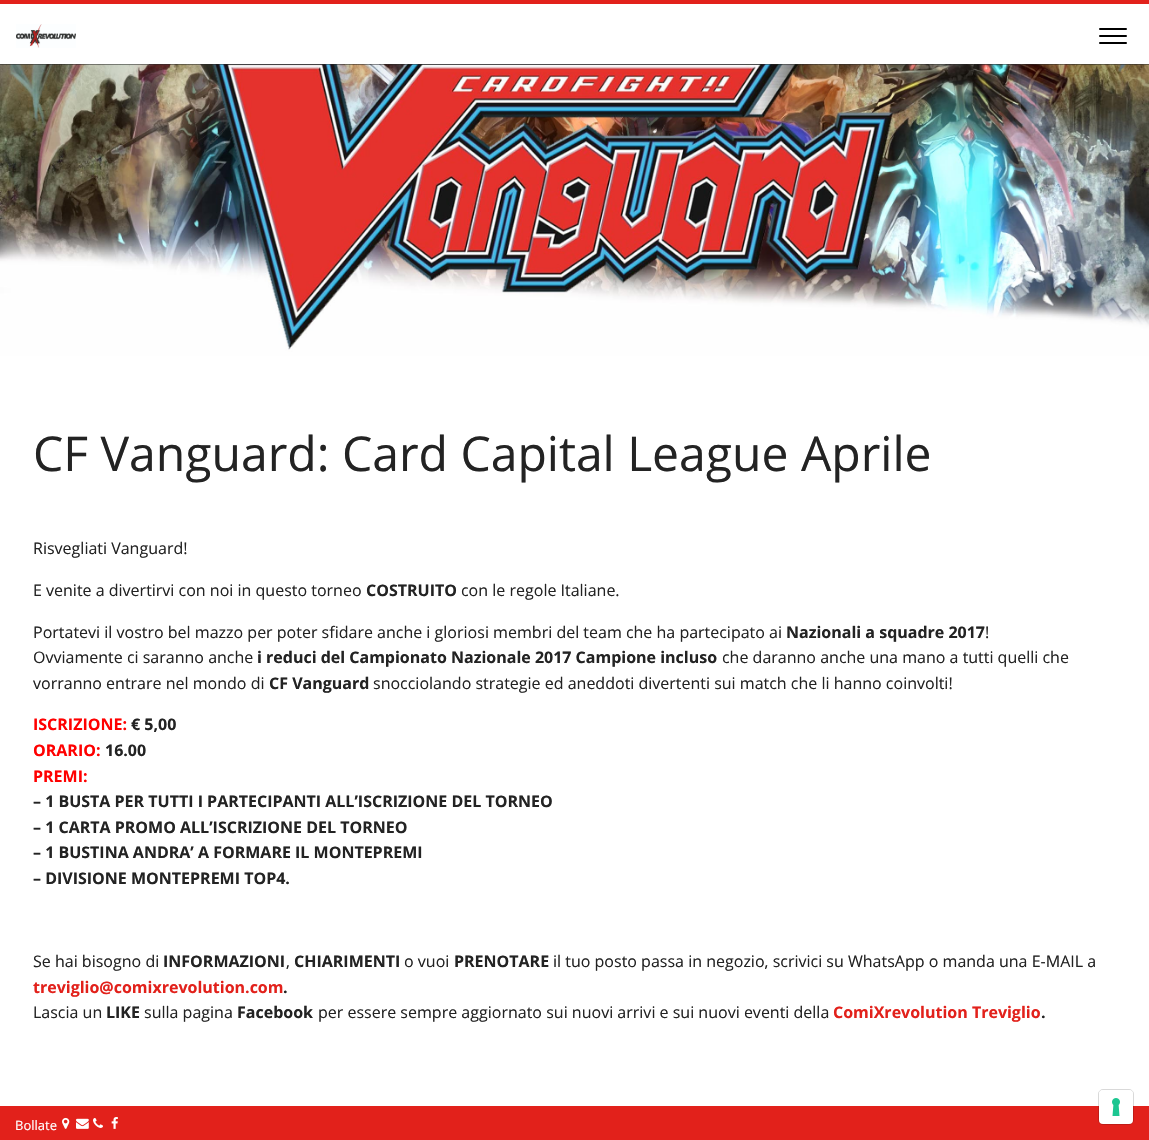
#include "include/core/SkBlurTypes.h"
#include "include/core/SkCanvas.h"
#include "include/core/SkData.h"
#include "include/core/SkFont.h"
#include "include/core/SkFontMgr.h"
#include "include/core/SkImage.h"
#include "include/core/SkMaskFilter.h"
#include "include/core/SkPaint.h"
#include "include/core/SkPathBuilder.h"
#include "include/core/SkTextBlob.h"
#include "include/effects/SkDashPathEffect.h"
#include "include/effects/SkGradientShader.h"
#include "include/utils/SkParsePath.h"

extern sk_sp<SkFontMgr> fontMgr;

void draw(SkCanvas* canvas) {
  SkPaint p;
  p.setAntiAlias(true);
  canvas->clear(SK_ColorWHITE);
  canvas->drawImageRect(SkImages::DeferredFromEncodedData(SkData::MakeFromFileName("images/2.png")), SkRect::MakeLTRB(0, 64, 1149, 356), SkSamplingOptions());
  p.setColor(SkColorSetARGB(128, 35, 35, 35));
  canvas->drawRect(SkRect::MakeLTRB(0, 64, 1149, 65), p);
  p.setColor(SkColorSetRGB(226, 33, 27));
  canvas->drawRect(SkRect::MakeLTRB(0, 0, 1149, 4), p);
  canvas->drawImageRect(SkImages::DeferredFromEncodedData(SkData::MakeFromFileName("images/1.png")), SkRect::MakeLTRB(16, 24, 76, 48), SkSamplingOptions());
  p.setColor(SK_ColorBLACK);
  canvas->drawRoundRect(SkRect::MakeLTRB(1099, 35, 1127, 37), 1, 1, p);
  canvas->drawRoundRect(SkRect::MakeLTRB(1099, 28, 1127, 30), 1, 1, p);
  canvas->drawRoundRect(SkRect::MakeLTRB(1099, 42, 1127, 44), 1, 1, p);
  p.setColor(SkColorSetRGB(226, 33, 27));
  canvas->drawRect(SkRect::MakeLTRB(0, 1106, 1149, 1140), p);
  canvas->drawImageRect(SkImages::DeferredFromEncodedData(SkData::MakeFromFileName("images/3.png")), SkRect::MakeLTRB(62, 1117, 70, 1129), SkSamplingOptions());
  canvas->drawImageRect(SkImages::DeferredFromEncodedData(SkData::MakeFromFileName("images/4.png")), SkRect::MakeLTRB(76, 1118, 89, 1129), SkSamplingOptions());
  canvas->drawImageRect(SkImages::DeferredFromEncodedData(SkData::MakeFromFileName("images/5.png")), SkRect::MakeLTRB(93, 1118, 103, 1128), SkSamplingOptions());
  canvas->drawImageRect(SkImages::DeferredFromEncodedData(SkData::MakeFromFileName("images/6.png")), SkRect::MakeLTRB(111, 1117, 118, 1129), SkSamplingOptions());
  p.setStyle(SkPaint::kStroke_Style);
  p.setStrokeWidth(1);
  p.setColor(SkColorSetARGB(38, 0, 0, 0));
  canvas->drawRoundRect(SkRect::MakeLTRB(1098.5f, 1089.5f, 1133.5f, 1124.5f), 4.5f, 4.5f, p);
  p.setStyle(SkPaint::kFill_Style);
  p.setColor(SK_ColorWHITE);
  canvas->drawRoundRect(SkRect::MakeLTRB(1099, 1090, 1133, 1124), 4, 4, p);
  canvas->drawImageRect(SkImages::DeferredFromEncodedData(SkData::MakeFromFileName("images/7.png")), SkRect::MakeLTRB(1112, 1098, 1120, 1116), SkSamplingOptions());
  SkFont font1(fontMgr->matchFamilyStyle("Open Sans", SkFontStyle::Normal()), 48);
  font1.setSubpixel(true);
  p.setColor(SkColorSetRGB(35, 35, 35));
  canvas->drawString("CF Vanguard: Card Capital League Aprile", 33, 471, font1, p);
  SkFont font2(fontMgr->matchFamilyStyle("Open Sans", SkFontStyle::Normal()), 16);
  font2.setSubpixel(true);
  canvas->drawString("Risvegliati Vanguard!", 33, 554, font2, p);
  canvas->drawString("E venite a divertirvi con noi in questo torneo", 33, 596, font2, p);
  SkFont font3(fontMgr->matchFamilyStyle("Open Sans", SkFontStyle::Bold()), 16);
  font3.setSubpixel(true);
  canvas->drawString("COSTRUITO", 366, 596, font3, p);
  canvas->drawString("con le regole Italiane.", 461, 596, font2, p);
  canvas->drawString("Portatevi il vostro bel mazzo per poter sfidare anche i gloriosi membri del team che ha partecipato ai", 33, 638, font2, p);
  canvas->drawString("Nazionali a squadre 2017", 786, 638, font3, p);
  canvas->drawString("!", 985, 638, font2, p);
  canvas->drawString("Ovviamente ci saranno anche", 33, 663, font2, p);
  canvas->drawString("i reduci del Campionato Nazionale 2017 Campione incluso", 257, 663, font3, p);
  canvas->drawString("che daranno anche una mano a tutti quelli che", 722, 663, font2, p);
  canvas->drawString("vorranno entrare nel mondo di", 33, 689, font2, p);
  canvas->drawString("CF Vanguard", 269, 689, font3, p);
  canvas->drawString("snocciolando strategie ed aneddoti divertenti sui match che li hanno coinvolti!", 373, 689, font2, p);
  p.setColor(SkColorSetRGB(255, 0, 0));
  canvas->drawString("ISCRIZIONE:", 33, 730, font3, p);
  p.setColor(SkColorSetRGB(35, 35, 35));
  canvas->drawString("€ 5,00", 131, 730, font3, p);
  p.setColor(SkColorSetRGB(255, 0, 0));
  canvas->drawString("ORARIO:", 33, 756, font3, p);
  p.setColor(SkColorSetRGB(35, 35, 35));
  canvas->drawString("16.00", 105, 756, font3, p);
  p.setColor(SkColorSetRGB(255, 0, 0));
  canvas->drawString("PREMI:", 33, 782, font3, p);
  p.setColor(SkColorSetRGB(35, 35, 35));
  canvas->drawString("– 1 BUSTA PER TUTTI I PARTECIPANTI ALL’ISCRIZIONE DEL TORNEO", 33, 807, font3, p);
  canvas->drawString("– 1 CARTA PROMO ALL’ISCRIZIONE DEL TORNEO", 33, 833, font3, p);
  canvas->drawString("– 1 BUSTINA ANDRA’ A FORMARE IL MONTEPREMI", 33, 858, font3, p);
  canvas->drawString("– DIVISIONE MONTEPREMI TOP4.", 33, 884, font3, p);
  canvas->drawString("Se hai bisogno di", 33, 967, font2, p);
  canvas->drawString("INFORMAZIONI", 163, 967, font3, p);
  canvas->drawString(",", 286, 967, font2, p);
  canvas->drawString("CHIARIMENTI", 294, 967, font3, p);
  canvas->drawString("o vuoi", 404, 967, font2, p);
  canvas->drawString("PRENOTARE", 454, 967, font3, p);
  canvas->drawString("il tuo posto passa in negozio, scrivici su WhatsApp o manda una E-MAIL a", 553, 967, font2, p);
  p.setColor(SkColorSetRGB(226, 33, 27));
  canvas->drawString("treviglio@comixrevolution.com", 33, 993, font3, p);
  p.setColor(SkColorSetRGB(35, 35, 35));
  canvas->drawString(".", 283, 993, font3, p);
  canvas->drawString("Lascia un", 33, 1018, font2, p);
  canvas->drawString("LIKE", 106, 1018, font3, p);
  canvas->drawString("sulla pagina", 144, 1018, font2, p);
  canvas->drawString("Facebook", 237, 1018, font3, p);
  canvas->drawString("per essere sempre aggiornato sui nuovi arrivi e sui nuovi eventi della", 318, 1018, font2, p);
  p.setColor(SkColorSetRGB(226, 33, 27));
  canvas->drawString("ComiXrevolution Treviglio", 833, 1018, font3, p);
  p.setColor(SkColorSetRGB(35, 35, 35));
  canvas->drawString(".", 1041, 1018, font3, p);
  SkFont font4(fontMgr->matchFamilyStyle("Open Sans", SkFontStyle::Normal()), 13);
  font4.setSubpixel(true);
  p.setColor(SK_ColorWHITE);
  canvas->drawString("Bollate", 15, 1130, font4, p);
}
